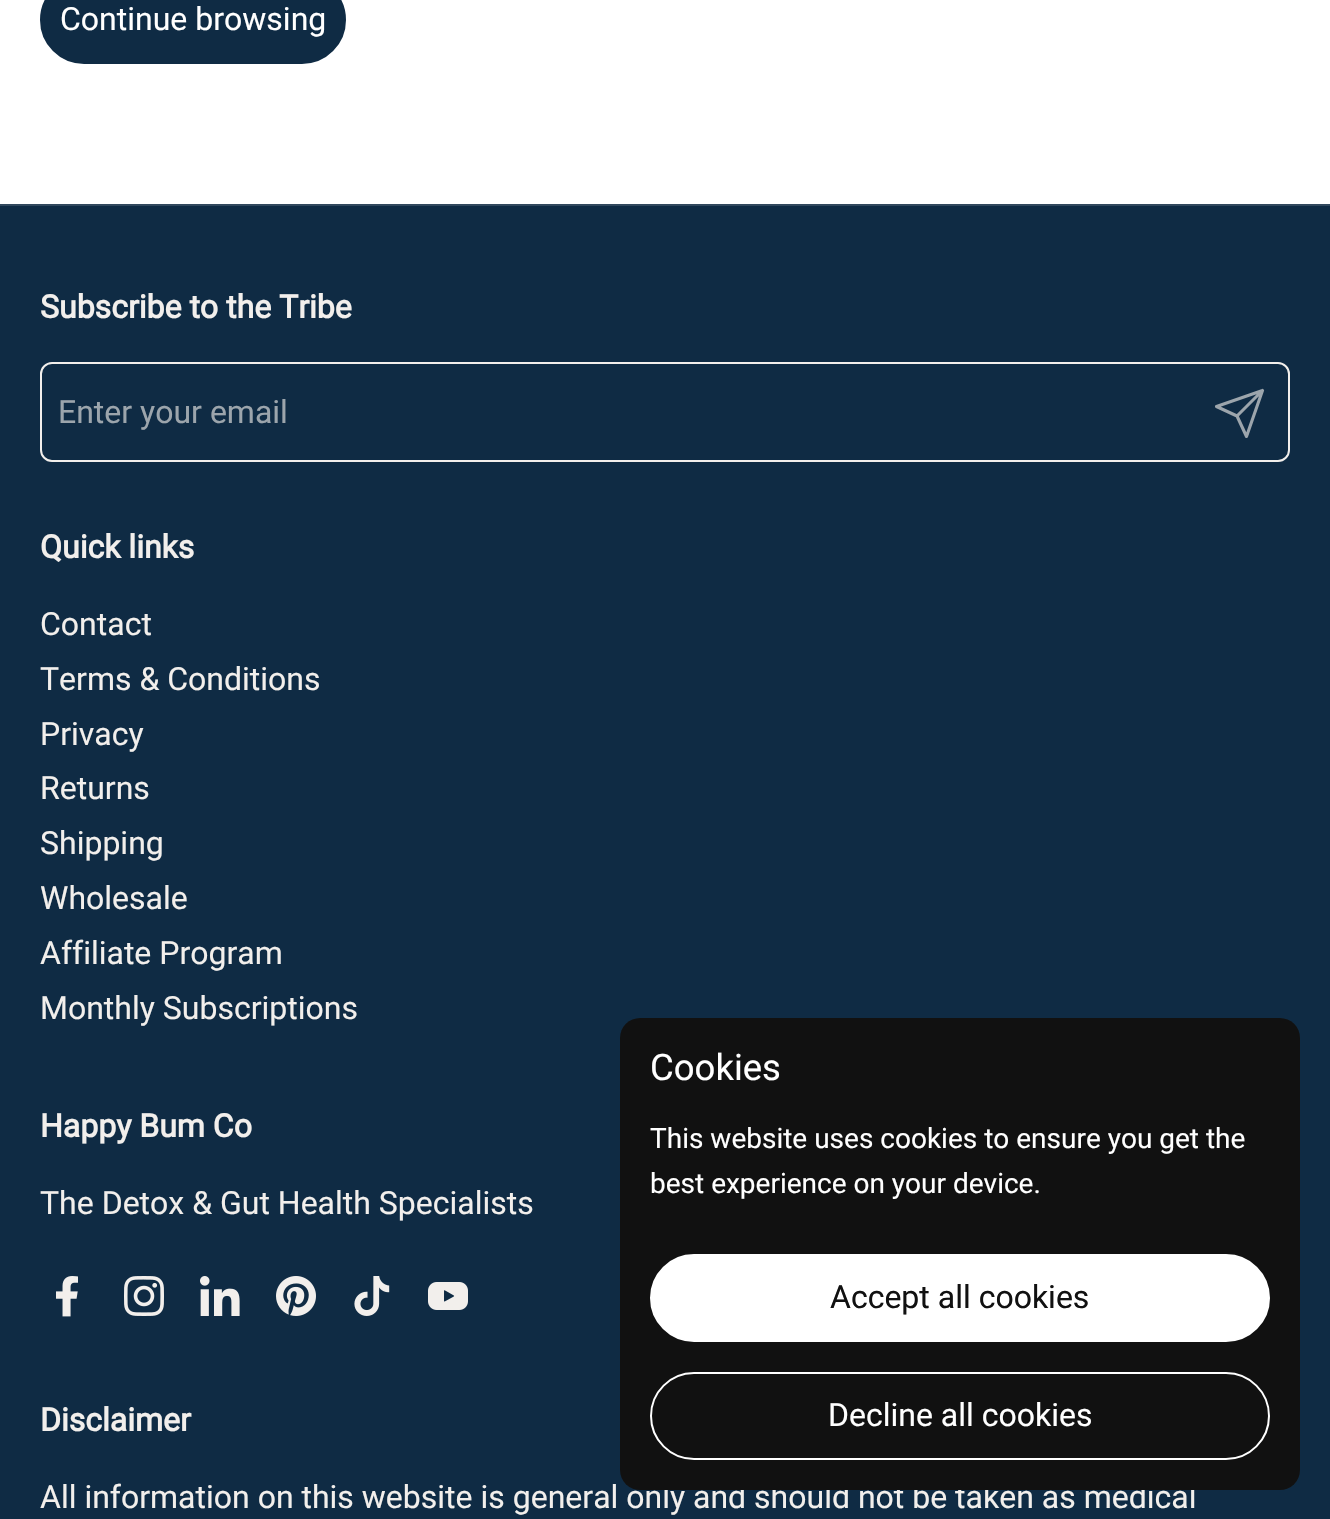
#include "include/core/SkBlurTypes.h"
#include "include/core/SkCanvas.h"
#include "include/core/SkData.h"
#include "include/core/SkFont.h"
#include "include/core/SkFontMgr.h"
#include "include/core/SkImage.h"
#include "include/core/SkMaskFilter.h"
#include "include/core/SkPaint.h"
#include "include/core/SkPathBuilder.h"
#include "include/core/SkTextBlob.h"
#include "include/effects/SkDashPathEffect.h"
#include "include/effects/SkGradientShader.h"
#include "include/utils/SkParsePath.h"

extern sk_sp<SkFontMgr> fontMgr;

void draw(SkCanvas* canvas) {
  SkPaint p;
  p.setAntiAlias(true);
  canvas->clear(SK_ColorWHITE);
  p.setColor(SkColorSetRGB(15, 43, 68));
  canvas->drawRoundRect(SkRect::MakeLTRB(41, -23, 345, 63), 43, 43, p);
  p.setStyle(SkPaint::kStroke_Style);
  p.setStrokeWidth(2);
  canvas->drawRoundRect(SkRect::MakeLTRB(41, -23, 345, 63), 43, 43, p);
  p.setStyle(SkPaint::kFill_Style);
  canvas->drawRect(SkRect::MakeLTRB(0, 206, 1330, 1519), p);
  p.setColor(SkColorSetRGB(49, 72, 93));
  canvas->drawRect(SkRect::MakeLTRB(0, 204, 1330, 206), p);
  p.setStyle(SkPaint::kStroke_Style);
  p.setColor(SkColorSetRGB(242, 239, 236));
  canvas->drawRoundRect(SkRect::MakeLTRB(41, 363, 1289, 461), 11, 11, p);
  p.setStrokeWidth(3.1f);
  p.setStrokeCap(SkPaint::kRound_Cap);
  p.setStrokeJoin(SkPaint::kRound_Join);
  p.setColor(SkColorSetRGB(156, 165, 172));
  canvas->drawPath(SkPathBuilder().moveTo(1262.5f, 390.5f).lineTo(1237, 416).moveTo(1262.5f, 390.5f).lineTo(1246.5f, 436.5f).lineTo(1237, 416).lineTo(1216.5f, 406.5f).close().detach(), p);
  canvas->drawImageRect(SkImages::DeferredFromEncodedData(SkData::MakeFromFileName("images/1.png")), SkRect::MakeLTRB(56, 1276, 78, 1317), SkSamplingOptions());
  canvas->drawImageRect(SkImages::DeferredFromEncodedData(SkData::MakeFromFileName("images/2.png")), SkRect::MakeLTRB(124, 1276, 164, 1316), SkSamplingOptions());
  canvas->drawImageRect(SkImages::DeferredFromEncodedData(SkData::MakeFromFileName("images/3.png")), SkRect::MakeLTRB(200, 1276, 240, 1316), SkSamplingOptions());
  canvas->drawImageRect(SkImages::DeferredFromEncodedData(SkData::MakeFromFileName("images/4.png")), SkRect::MakeLTRB(276, 1276, 316, 1316), SkSamplingOptions());
  canvas->drawImageRect(SkImages::DeferredFromEncodedData(SkData::MakeFromFileName("images/5.png")), SkRect::MakeLTRB(354, 1276, 390, 1316), SkSamplingOptions());
  canvas->drawImageRect(SkImages::DeferredFromEncodedData(SkData::MakeFromFileName("images/6.png")), SkRect::MakeLTRB(428, 1282, 468, 1310), SkSamplingOptions());
  SkFont font1(fontMgr->matchFamilyStyle("Roboto", SkFontStyle::Normal()), 32);
  font1.setSubpixel(true);
  p.setStyle(SkPaint::kFill_Style);
  p.setColor(SK_ColorWHITE);
  canvas->drawString("Continue browsing", 60, 30, font1, p);
  SkFont font2(fontMgr->matchFamilyStyle("Roboto", SkFontStyle::Bold()), 32);
  font2.setSubpixel(true);
  p.setColor(SkColorSetRGB(242, 239, 236));
  canvas->drawString("Subscribe to the Tribe", 40, 318, font2, p);
  p.setColor(SkColorSetRGB(156, 165, 172));
  canvas->drawString("Enter your email", 58, 423, font1, p);
  p.setColor(SkColorSetRGB(242, 239, 236));
  canvas->drawString("Quick links", 40, 558, font2, p);
  canvas->drawString("Contact", 40, 635, font1, p);
  canvas->drawString("Terms & Conditions", 40, 690, font1, p);
  canvas->drawString("Privacy", 40, 745, font1, p);
  canvas->drawString("Returns", 40, 799, font1, p);
  canvas->drawString("Shipping", 40, 854, font1, p);
  canvas->drawString("Wholesale", 40, 909, font1, p);
  canvas->drawString("Affiliate Program", 40, 964, font1, p);
  canvas->drawString("Monthly Subscriptions", 40, 1019, font1, p);
  canvas->drawString("Happy Bum Co", 40, 1137, font2, p);
  canvas->drawString("The Detox & Gut Health Specialists", 40, 1214, font1, p);
  canvas->drawString("Disclaimer", 40, 1431, font2, p);
  canvas->drawString("All information on this website is general only and should not be taken as medical", 40, 1508, font1, p);
  p.setColor(SkColorSetRGB(17, 17, 17));
  canvas->drawRoundRect(SkRect::MakeLTRB(620, 1018, 1300, 1490), 20, 20, p);
  SkFont font3(fontMgr->matchFamilyStyle("Roboto", SkFontStyle::Normal()), 36.5f);
  font3.setSubpixel(true);
  p.setColor(SK_ColorWHITE);
  canvas->drawString("Cookies", 650, 1080, font3, p);
  SkFont font4(fontMgr->matchFamilyStyle("Roboto", SkFontStyle::Normal()), 28);
  font4.setSubpixel(true);
  canvas->drawString("This website uses cookies to ensure you get the", 650, 1148, font4, p);
  canvas->drawString("best experience on your device.", 650, 1193, font4, p);
  canvas->drawRoundRect(SkRect::MakeLTRB(651, 1255, 1269, 1341), 43, 43, p);
  p.setStyle(SkPaint::kStroke_Style);
  p.setStrokeWidth(2);
  p.setStrokeCap(SkPaint::kButt_Cap);
  p.setStrokeJoin(SkPaint::kMiter_Join);
  canvas->drawRoundRect(SkRect::MakeLTRB(651, 1255, 1269, 1341), 43, 43, p);
  p.setStyle(SkPaint::kFill_Style);
  p.setColor(SkColorSetRGB(17, 17, 17));
  canvas->drawString("Accept all cookies", 830, 1308, font1, p);
  p.setStyle(SkPaint::kStroke_Style);
  p.setColor(SK_ColorWHITE);
  canvas->drawRoundRect(SkRect::MakeLTRB(651, 1373, 1269, 1459), 43, 43, p);
  p.setStyle(SkPaint::kFill_Style);
  canvas->drawString("Decline all cookies", 828, 1426, font1, p);
}
